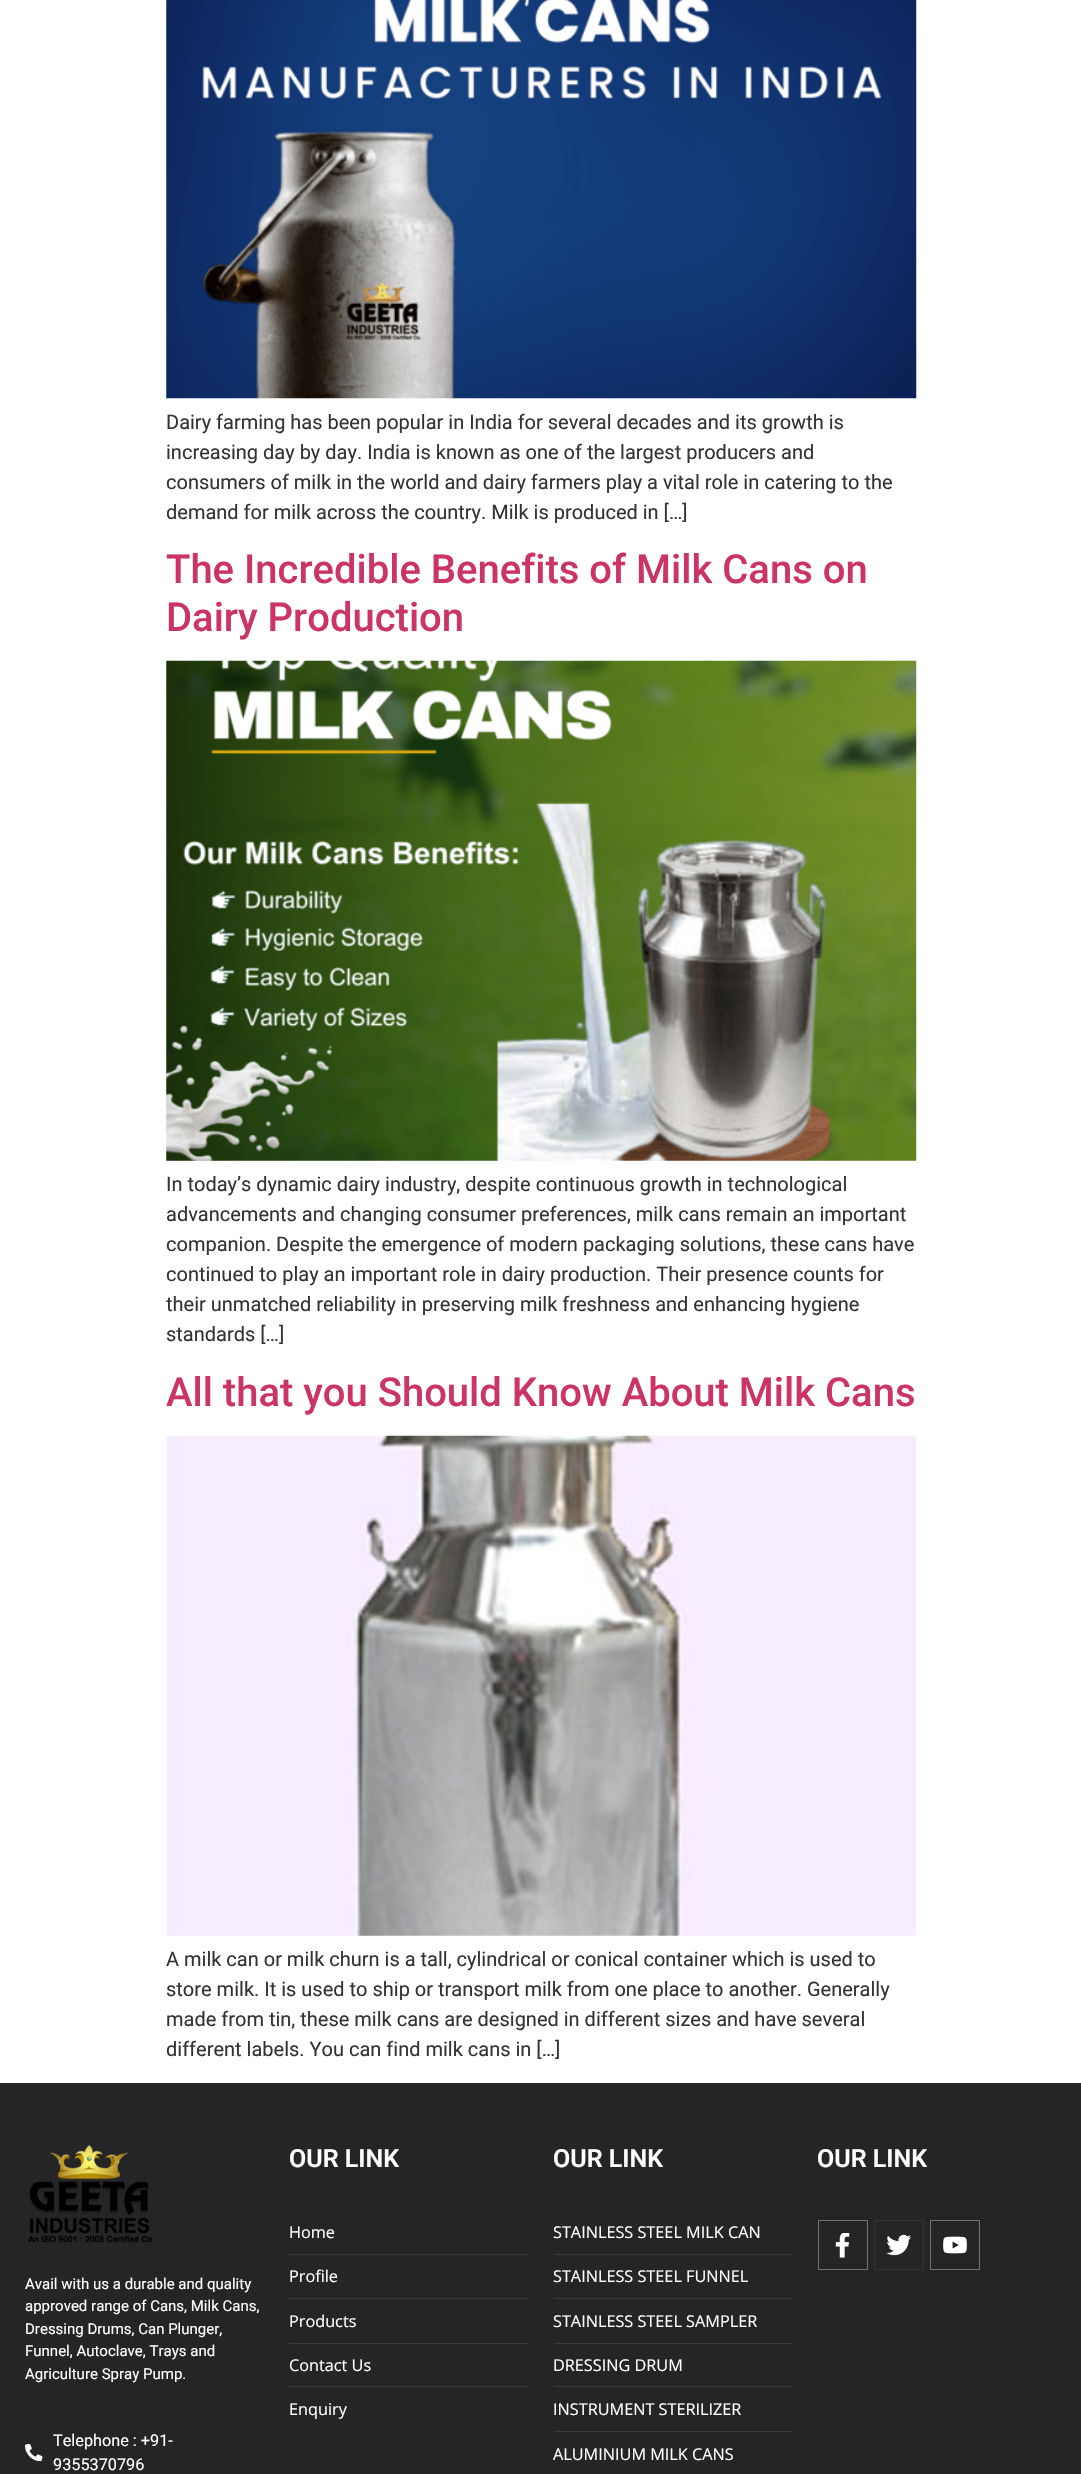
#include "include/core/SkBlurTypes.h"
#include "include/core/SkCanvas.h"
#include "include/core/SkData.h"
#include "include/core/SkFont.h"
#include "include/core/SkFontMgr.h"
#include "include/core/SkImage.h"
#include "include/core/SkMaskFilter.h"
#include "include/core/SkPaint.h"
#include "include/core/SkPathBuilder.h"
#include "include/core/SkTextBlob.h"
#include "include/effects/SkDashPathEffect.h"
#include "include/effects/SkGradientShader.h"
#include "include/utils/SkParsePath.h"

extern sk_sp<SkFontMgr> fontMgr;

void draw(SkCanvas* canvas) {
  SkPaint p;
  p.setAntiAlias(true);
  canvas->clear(SK_ColorWHITE);
  canvas->drawImageRect(SkImages::DeferredFromEncodedData(SkData::MakeFromFileName("images/1.png")), SkRect::MakeLTRB(166, 0, 917, 399), SkSamplingOptions());
  canvas->drawImageRect(SkImages::DeferredFromEncodedData(SkData::MakeFromFileName("images/2.png")), SkRect::MakeLTRB(166, 660, 917, 1161), SkSamplingOptions());
  canvas->drawImageRect(SkImages::DeferredFromEncodedData(SkData::MakeFromFileName("images/3.png")), SkRect::MakeLTRB(166, 1435, 917, 1936), SkSamplingOptions());
  p.setColor(SkColorSetRGB(37, 37, 37));
  canvas->drawRect(SkRect::MakeLTRB(0, 2083, 1081, 2474), p);
  p.setColor(SkColorSetRGB(61, 57, 57));
  canvas->drawRect(SkRect::MakeLTRB(289, 2254, 529, 2255), p);
  canvas->drawRect(SkRect::MakeLTRB(289, 2298, 529, 2299), p);
  canvas->drawRect(SkRect::MakeLTRB(289, 2343, 529, 2344), p);
  canvas->drawRect(SkRect::MakeLTRB(289, 2386, 529, 2387), p);
  canvas->drawRect(SkRect::MakeLTRB(554, 2254, 793, 2255), p);
  canvas->drawRect(SkRect::MakeLTRB(554, 2298, 793, 2299), p);
  canvas->drawRect(SkRect::MakeLTRB(554, 2343, 793, 2344), p);
  canvas->drawRect(SkRect::MakeLTRB(554, 2386, 793, 2387), p);
  canvas->drawRect(SkRect::MakeLTRB(554, 2431, 793, 2432), p);
  p.setStyle(SkPaint::kStroke_Style);
  p.setStrokeWidth(1);
  p.setColor(SkColorSetRGB(105, 114, 125));
  canvas->drawRect(SkRect::MakeLTRB(818.5f, 2220.5f, 867.5f, 2269.5f), p);
  canvas->drawImageRect(SkImages::DeferredFromEncodedData(SkData::MakeFromFileName("images/4.png")), SkRect::MakeLTRB(835, 2233, 850, 2258), SkSamplingOptions());
  p.setColor(SkColorSetRGB(51, 51, 51));
  canvas->drawRect(SkRect::MakeLTRB(874.5f, 2220.5f, 923.5f, 2269.5f), p);
  canvas->drawImageRect(SkImages::DeferredFromEncodedData(SkData::MakeFromFileName("images/5.png")), SkRect::MakeLTRB(886, 2234, 911, 2256), SkSamplingOptions());
  p.setColor(SkColorSetRGB(105, 114, 125));
  canvas->drawRect(SkRect::MakeLTRB(930.5f, 2220.5f, 979.5f, 2269.5f), p);
  canvas->drawImageRect(SkImages::DeferredFromEncodedData(SkData::MakeFromFileName("images/6.png")), SkRect::MakeLTRB(943, 2236, 967, 2254), SkSamplingOptions());
  canvas->drawImageRect(SkImages::DeferredFromEncodedData(SkData::MakeFromFileName("images/7.png")), SkRect::MakeLTRB(28, 2145, 154, 2243), SkSamplingOptions());
  canvas->drawImageRect(SkImages::DeferredFromEncodedData(SkData::MakeFromFileName("images/8.png")), SkRect::MakeLTRB(25, 2444, 43, 2461), SkSamplingOptions());
  SkFont font1(fontMgr->matchFamilyStyle("Roboto", SkFontStyle::Normal()), 20);
  font1.setSubpixel(true);
  p.setStyle(SkPaint::kFill_Style);
  p.setColor(SkColorSetRGB(51, 51, 51));
  canvas->drawString("Dairy farming has been popular in India for several decades and its growth is", 166, 429, font1, p);
  canvas->drawString("increasing day by day. India is known as one of the largest producers and", 166, 459, font1, p);
  canvas->drawString("consumers of milk in the world and dairy farmers play a vital role in catering to the", 166, 489, font1, p);
  canvas->drawString("demand for milk across the country. Milk is produced in […]", 166, 519, font1, p);
  SkFont font2(fontMgr->matchFamilyStyle("Roboto", SkFontStyle(500, SkFontStyle::kNormal_Width, SkFontStyle::kUpright_Slant)), 40);
  font2.setSubpixel(true);
  p.setColor(SkColorSetRGB(204, 51, 102));
  canvas->drawString("The Incredible Benefits of Milk Cans on", 166, 583, font2, p);
  canvas->drawString("Dairy Production", 166, 631, font2, p);
  p.setColor(SkColorSetRGB(51, 51, 51));
  canvas->drawString("In today’s dynamic dairy industry, despite continuous growth in technological", 166, 1191, font1, p);
  canvas->drawString("advancements and changing consumer preferences, milk cans remain an important", 166, 1221, font1, p);
  canvas->drawString("companion. Despite the emergence of modern packaging solutions, these cans have", 166, 1251, font1, p);
  canvas->drawString("continued to play an important role in dairy production. Their presence counts for", 166, 1281, font1, p);
  canvas->drawString("their unmatched reliability in preserving milk freshness and enhancing hygiene", 166, 1311, font1, p);
  canvas->drawString("standards […]", 166, 1341, font1, p);
  p.setColor(SkColorSetRGB(204, 51, 102));
  canvas->drawString("All that you Should Know About Milk Cans", 166, 1406, font2, p);
  p.setColor(SkColorSetRGB(51, 51, 51));
  canvas->drawString("A milk can or milk churn is a tall, cylindrical or conical container which is used to", 166, 1966, font1, p);
  canvas->drawString("store milk. It is used to ship or transport milk from one place to another. Generally", 166, 1996, font1, p);
  canvas->drawString("made from tin, these milk cans are designed in different sizes and have several", 166, 2026, font1, p);
  canvas->drawString("different labels. You can find milk cans in […]", 166, 2056, font1, p);
  SkFont font3(fontMgr->matchFamilyStyle("Roboto", SkFontStyle(600, SkFontStyle::kNormal_Width, SkFontStyle::kUpright_Slant)), 25);
  font3.setSubpixel(true);
  p.setColor(SK_ColorWHITE);
  canvas->drawString("OUR LINK", 289, 2167, font3, p);
  SkFont font4(fontMgr->matchFamilyStyle("Open Sans", SkFontStyle::Normal()), 16.25f);
  font4.setSubpixel(true);
  canvas->drawString("Home", 289, 2238, font4, p);
  canvas->drawString("Profile", 289, 2282, font4, p);
  canvas->drawString("Products", 289, 2327, font4, p);
  canvas->drawString("Contact Us", 289, 2371, font4, p);
  canvas->drawString("Enquiry", 289, 2415, font4, p);
  canvas->drawString("OUR LINK", 553, 2167, font3, p);
  canvas->drawString("STAINLESS STEEL MILK CAN", 553, 2238, font4, p);
  canvas->drawString("STAINLESS STEEL FUNNEL", 553, 2282, font4, p);
  canvas->drawString("STAINLESS STEEL SAMPLER", 553, 2327, font4, p);
  canvas->drawString("DRESSING DRUM", 553, 2371, font4, p);
  canvas->drawString("INSTRUMENT STERILIZER", 553, 2415, font4, p);
  canvas->drawString("ALUMINIUM MILK CANS", 553, 2460, font4, p);
  canvas->drawString("OUR LINK", 817, 2167, font3, p);
  SkFont font5(fontMgr->matchFamilyStyle("Roboto", SkFontStyle::Normal()), 15);
  font5.setSubpixel(true);
  canvas->drawString("Avail with us a durable and quality", 25, 2289, font5, p);
  canvas->drawString("approved range of Cans, Milk Cans,", 25, 2311, font5, p);
  canvas->drawString("Dressing Drums, Can Plunger,", 25, 2334, font5, p);
  canvas->drawString("Funnel, Autoclave, Trays and", 25, 2356, font5, p);
  canvas->drawString("Agriculture Spray Pump.", 25, 2379, font5, p);
  SkFont font6(fontMgr->matchFamilyStyle("Roboto", SkFontStyle::Normal()), 16.25f);
  font6.setSubpixel(true);
  canvas->drawString("Telephone : +91-", 53, 2446, font6, p);
  canvas->drawString("9355370796", 53, 2470, font6, p);
}
